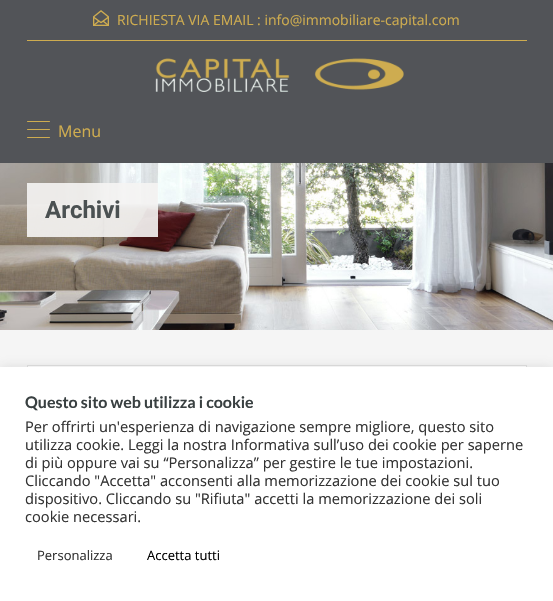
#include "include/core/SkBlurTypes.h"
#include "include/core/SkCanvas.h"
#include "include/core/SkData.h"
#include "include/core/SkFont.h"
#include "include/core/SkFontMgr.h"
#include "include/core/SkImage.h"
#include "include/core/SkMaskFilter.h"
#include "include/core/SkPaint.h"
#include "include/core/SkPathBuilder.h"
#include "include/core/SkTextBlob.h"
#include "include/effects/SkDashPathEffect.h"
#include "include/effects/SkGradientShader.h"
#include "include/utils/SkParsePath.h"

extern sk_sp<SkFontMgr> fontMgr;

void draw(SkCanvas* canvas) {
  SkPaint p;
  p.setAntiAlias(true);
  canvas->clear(SkColorSetRGB(245, 245, 245));
  p.setColor(SkColorSetRGB(82, 84, 88));
  canvas->drawRect(SkRect::MakeLTRB(0, 0, 553, 163), p);
  p.setColor(SkColorSetRGB(206, 172, 80));
  canvas->drawRect(SkRect::MakeLTRB(27, 40, 527, 41), p);
  canvas->drawImageRect(SkImages::DeferredFromEncodedData(SkData::MakeFromFileName("images/1.png")), SkRect::MakeLTRB(93, 10, 109, 26), SkSamplingOptions());
  canvas->drawImageRect(SkImages::DeferredFromEncodedData(SkData::MakeFromFileName("images/2.png")), SkRect::MakeLTRB(155, 58, 404, 92), SkSamplingOptions());
  canvas->drawRoundRect(SkRect::MakeLTRB(27, 129, 50, 130), 0.5f, 0.5f, p);
  canvas->drawRoundRect(SkRect::MakeLTRB(27, 121, 50, 122), 0.5f, 0.5f, p);
  canvas->drawRoundRect(SkRect::MakeLTRB(27, 137, 50, 138), 0.5f, 0.5f, p);
  canvas->drawImageRect(SkImages::DeferredFromEncodedData(SkData::MakeFromFileName("images/3.png")), SkRect::MakeLTRB(0, 163, 553, 330), SkSamplingOptions());
  p.setColor(SkColorSetARGB(230, 245, 244, 243));
  canvas->drawRect(SkRect::MakeLTRB(27, 183, 158, 237), p);
  p.setColor(SK_ColorWHITE);
  canvas->drawRect(SkRect::MakeLTRB(28, 366, 526, 367), p);
  p.setStyle(SkPaint::kStroke_Style);
  p.setStrokeWidth(1);
  p.setColor(SkColorSetRGB(222, 222, 222));
  canvas->drawRect(SkRect::MakeLTRB(27.5f, 365.5f, 526.5f, 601.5f), p);
  p.setStyle(SkPaint::kFill_Style);
  p.setColor(SkColorSetARGB(77, 172, 171, 171));
  p.setMaskFilter(SkMaskFilter::MakeBlur(kNormal_SkBlurStyle, 5));
  canvas->drawRect(SkRect::MakeLTRB(0, 366, 553, 600), p);
  p.setMaskFilter(nullptr);
  p.setColor(SK_ColorWHITE);
  canvas->drawRect(SkRect::MakeLTRB(0, 367, 553, 601), p);
  SkFont font1(fontMgr->matchFamilyStyle("Open Sans", SkFontStyle::Normal()), 14);
  font1.setSubpixel(true);
  p.setColor(SkColorSetRGB(206, 172, 80));
  canvas->drawString("RICHIESTA VIA EMAIL : info@immobiliare-capital.com", 117, 25, font1, p);
  SkFont font2(fontMgr->matchFamilyStyle("Open Sans", SkFontStyle::Normal()), 16);
  font2.setSubpixel(true);
  canvas->drawString("Menu", 58, 137, font2, p);
  SkFont font3(fontMgr->matchFamilyStyle("Roboto", SkFontStyle::Bold()), 24);
  font3.setSubpixel(true);
  p.setColor(SkColorSetRGB(75, 81, 82));
  canvas->drawString("Archivi", 45, 218, font3, p);
  SkFont font4(fontMgr->matchFamilyStyle("Lato", SkFontStyle::Bold()), 16);
  font4.setSubpixel(true);
  p.setColor(SkColorSetRGB(57, 64, 65));
  canvas->drawString("Questo sito web utilizza i cookie", 25, 408, font4, p);
  SkFont font5(fontMgr->matchFamilyStyle("Open Sans", SkFontStyle::Normal()), 14.65f);
  font5.setSubpixel(true);
  p.setColor(SkColorSetRGB(51, 51, 51));
  canvas->drawString("Per offrirti un'esperienza di navigazione sempre migliore, questo sito", 25, 432, font5, p);
  canvas->drawString("utilizza cookie. Leggi la nostra Informativa sull’uso dei cookie per saperne", 25, 450, font5, p);
  canvas->drawString("di più oppure vai su “Personalizza” per gestire le tue impostazioni.", 25, 468, font5, p);
  canvas->drawString("Cliccando \"Accetta\" acconsenti alla memorizzazione dei cookie sul tuo", 25, 486, font5, p);
  canvas->drawString("dispositivo. Cliccando su \"Rifiuta\" accetti la memorizzazione dei soli", 25, 504, font5, p);
  canvas->drawString("cookie necessari.", 25, 522, font5, p);
  SkFont font6(fontMgr->matchFamilyStyle("Open Sans", SkFontStyle::Normal()), 13);
  font6.setSubpixel(true);
  canvas->drawString("Personalizza", 37, 560, font6, p);
  p.setColor(SK_ColorBLACK);
  canvas->drawString("Accetta tutti", 147, 560, font6, p);
}
